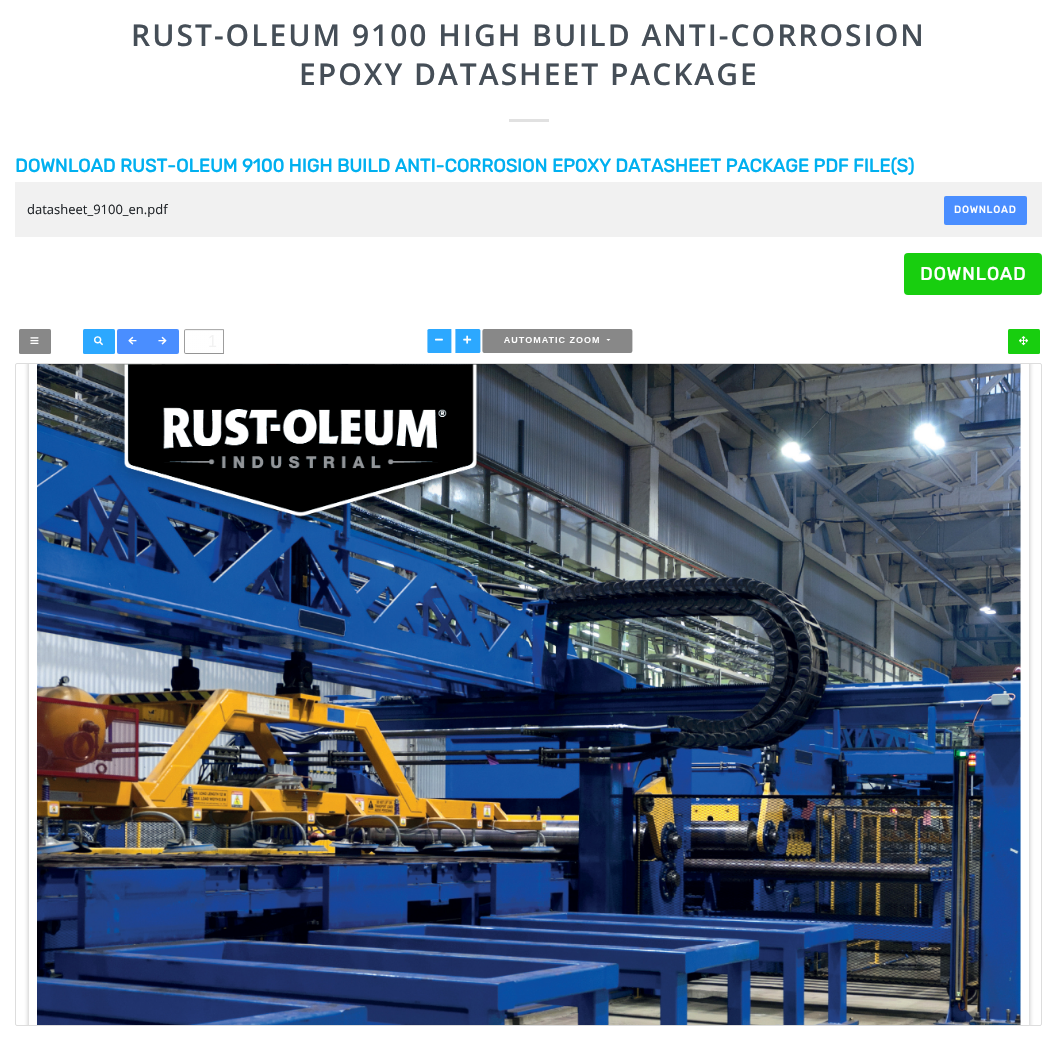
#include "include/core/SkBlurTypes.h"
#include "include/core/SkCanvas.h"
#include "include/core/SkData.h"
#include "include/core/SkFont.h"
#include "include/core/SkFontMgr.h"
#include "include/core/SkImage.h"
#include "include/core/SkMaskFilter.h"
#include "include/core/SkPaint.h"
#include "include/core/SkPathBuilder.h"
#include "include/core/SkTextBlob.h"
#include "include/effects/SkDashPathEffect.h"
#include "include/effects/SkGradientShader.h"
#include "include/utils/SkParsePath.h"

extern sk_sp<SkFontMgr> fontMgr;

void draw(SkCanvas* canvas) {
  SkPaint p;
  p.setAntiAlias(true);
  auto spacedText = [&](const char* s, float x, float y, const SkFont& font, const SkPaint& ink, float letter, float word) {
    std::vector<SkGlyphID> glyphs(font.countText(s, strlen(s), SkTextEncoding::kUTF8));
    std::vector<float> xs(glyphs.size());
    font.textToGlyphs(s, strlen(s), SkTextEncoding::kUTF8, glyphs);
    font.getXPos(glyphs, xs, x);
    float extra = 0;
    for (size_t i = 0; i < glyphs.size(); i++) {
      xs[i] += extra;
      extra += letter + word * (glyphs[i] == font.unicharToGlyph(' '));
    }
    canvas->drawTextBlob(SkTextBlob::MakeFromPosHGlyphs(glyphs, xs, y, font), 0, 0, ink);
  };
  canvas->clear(SK_ColorWHITE);
  p.setColor(SkColorSetRGB(225, 225, 225));
  canvas->drawRect(SkRect::MakeLTRB(509, 119, 549, 122), p);
  p.setColor(SkColorSetRGB(241, 241, 241));
  canvas->drawRect(SkRect::MakeLTRB(15, 182, 1042, 237), p);
  p.setColor(SkColorSetRGB(74, 142, 255));
  canvas->drawRoundRect(SkRect::MakeLTRB(944, 196, 1027, 225), 2, 2, p);
  p.setColor(SkColorSetRGB(24, 206, 15));
  canvas->drawRoundRect(SkRect::MakeLTRB(904, 253, 1042, 295), 4, 4, p);
  canvas->drawImageRect(SkImages::DeferredFromEncodedData(SkData::MakeFromFileName("images/1.png")), SkRect::MakeLTRB(15, 329, 1042, 1026), SkSamplingOptions());
  SkFont font1(fontMgr->matchFamilyStyle("Open Sans", SkFontStyle(600, SkFontStyle::kNormal_Width, SkFontStyle::kUpright_Slant)), 30);
  font1.setSubpixel(true);
  p.setColor(SkColorSetRGB(69, 78, 87));
  spacedText("RUST-OLEUM 9100 HIGH BUILD ANTI-CORROSION", 131, 46, font1, p, 2, 0);
  spacedText("EPOXY DATASHEET PACKAGE", 299, 85, font1, p, 2, 0);
  SkFont font2(fontMgr->matchFamilyStyle("Rubik", SkFontStyle::Bold()), 18.4f);
  font2.setSubpixel(true);
  p.setColor(SkColorSetRGB(0, 176, 240));
  canvas->drawString("DOWNLOAD RUST-OLEUM 9100 HIGH BUILD ANTI-CORROSION EPOXY DATASHEET PACKAGE PDF FILE(S)", 15, 172, font2, p);
  SkFont font3(fontMgr->matchFamilyStyle("Open Sans", SkFontStyle::Normal()), 13);
  font3.setSubpixel(true);
  p.setColor(SkColorSetRGB(33, 37, 41));
  canvas->drawString("datasheet_9100_en.pdf", 27, 214, font3, p);
  SkFont font4(fontMgr->matchFamilyStyle("Rubik", SkFontStyle::Bold()), 10);
  font4.setSubpixel(true);
  p.setColor(SK_ColorWHITE);
  spacedText("DOWNLOAD", 954, 213, font4, p, 1, 0);
  SkFont font5(fontMgr->matchFamilyStyle("Rubik", SkFontStyle::Bold()), 18);
  font5.setSubpixel(true);
  spacedText("DOWNLOAD", 920, 280, font5, p, 1, 0);
}
